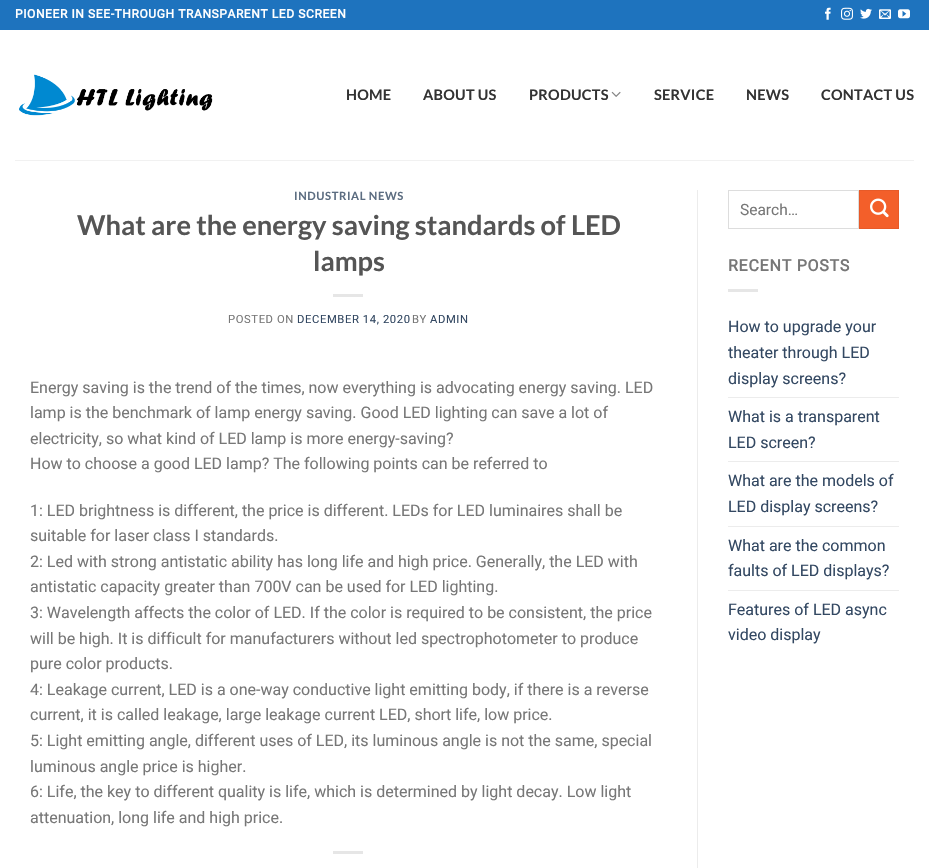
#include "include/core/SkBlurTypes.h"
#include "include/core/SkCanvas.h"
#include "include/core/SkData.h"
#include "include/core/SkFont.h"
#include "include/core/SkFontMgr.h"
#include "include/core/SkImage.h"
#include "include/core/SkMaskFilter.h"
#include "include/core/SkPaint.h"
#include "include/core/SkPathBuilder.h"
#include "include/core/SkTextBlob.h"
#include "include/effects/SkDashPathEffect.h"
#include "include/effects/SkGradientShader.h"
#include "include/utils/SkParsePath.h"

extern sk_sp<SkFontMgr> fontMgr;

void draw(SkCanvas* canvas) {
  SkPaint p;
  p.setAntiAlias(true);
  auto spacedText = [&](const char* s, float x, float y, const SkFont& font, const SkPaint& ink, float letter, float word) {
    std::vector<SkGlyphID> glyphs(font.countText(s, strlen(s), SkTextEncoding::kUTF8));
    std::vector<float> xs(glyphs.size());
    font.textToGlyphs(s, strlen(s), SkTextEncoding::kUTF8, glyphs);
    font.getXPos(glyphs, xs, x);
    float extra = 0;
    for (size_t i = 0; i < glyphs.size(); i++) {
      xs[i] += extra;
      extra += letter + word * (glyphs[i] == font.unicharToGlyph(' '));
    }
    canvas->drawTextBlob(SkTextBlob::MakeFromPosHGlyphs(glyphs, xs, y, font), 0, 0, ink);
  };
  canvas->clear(SK_ColorWHITE);
  p.setColor(SkColorSetRGB(30, 115, 190));
  canvas->drawRect(SkRect::MakeLTRB(0, 0, 929, 30), p);
  canvas->drawImageRect(SkImages::DeferredFromEncodedData(SkData::MakeFromFileName("images/1.png")), SkRect::MakeLTRB(825, 7, 831, 20), SkSamplingOptions());
  canvas->drawImageRect(SkImages::DeferredFromEncodedData(SkData::MakeFromFileName("images/2.png")), SkRect::MakeLTRB(841, 7, 853, 20), SkSamplingOptions());
  canvas->drawImageRect(SkImages::DeferredFromEncodedData(SkData::MakeFromFileName("images/3.png")), SkRect::MakeLTRB(860, 8, 872, 19), SkSamplingOptions());
  canvas->drawImageRect(SkImages::DeferredFromEncodedData(SkData::MakeFromFileName("images/4.png")), SkRect::MakeLTRB(879, 9, 891, 19), SkSamplingOptions());
  canvas->drawImageRect(SkImages::DeferredFromEncodedData(SkData::MakeFromFileName("images/5.png")), SkRect::MakeLTRB(898, 9, 910, 19), SkSamplingOptions());
  canvas->drawImageRect(SkImages::DeferredFromEncodedData(SkData::MakeFromFileName("images/6.png")), SkRect::MakeLTRB(19, 74, 213, 116), SkSamplingOptions());
  canvas->drawImageRect(SkImages::DeferredFromEncodedData(SkData::MakeFromFileName("images/7.png")), SkRect::MakeLTRB(611, 91, 621, 97), SkSamplingOptions());
  p.setColor(SkColorSetRGB(241, 241, 241));
  canvas->drawRect(SkRect::MakeLTRB(15, 160, 914, 161), p);
  p.setColor(SkColorSetRGB(230, 230, 230));
  canvas->drawRect(SkRect::MakeLTRB(333, 294, 363, 297), p);
  canvas->drawRect(SkRect::MakeLTRB(333, 851, 363, 854), p);
  p.setColor(SkColorSetRGB(236, 236, 236));
  canvas->drawRect(SkRect::MakeLTRB(697, 190, 698, 868), p);
  p.setStyle(SkPaint::kStroke_Style);
  p.setStrokeWidth(1);
  p.setColor(SkColorSetRGB(221, 221, 221));
  canvas->drawRect(SkRect::MakeLTRB(728.5f, 190.5f, 858.5f, 228.5f), p);
  p.setStyle(SkPaint::kFill_Style);
  p.setColor(SkColorSetRGB(243, 95, 42));
  canvas->drawRect(SkRect::MakeLTRB(859.5f, 190.5f, 898.5f, 228.5f), p);
  p.setStyle(SkPaint::kStroke_Style);
  p.setColor(SkColorSetRGB(231, 90, 40));
  canvas->drawRect(SkRect::MakeLTRB(859.5f, 190.5f, 898.5f, 228.5f), p);
  canvas->drawImageRect(SkImages::DeferredFromEncodedData(SkData::MakeFromFileName("images/8.png")), SkRect::MakeLTRB(870, 198, 889, 218), SkSamplingOptions());
  p.setStyle(SkPaint::kFill_Style);
  p.setColor(SkColorSetRGB(230, 230, 230));
  canvas->drawRect(SkRect::MakeLTRB(728, 289, 758, 292), p);
  p.setColor(SkColorSetRGB(236, 236, 236));
  canvas->drawRect(SkRect::MakeLTRB(728, 397, 899, 398), p);
  canvas->drawRect(SkRect::MakeLTRB(728, 461, 899, 462), p);
  canvas->drawRect(SkRect::MakeLTRB(728, 526, 899, 527), p);
  canvas->drawRect(SkRect::MakeLTRB(728, 590, 899, 591), p);
  SkFont font1(fontMgr->matchFamilyStyle("Roboto", SkFontStyle::Bold()), 12);
  font1.setSubpixel(true);
  p.setColor(SK_ColorWHITE);
  spacedText("PIONEER IN SEE-THROUGH TRANSPARENT LED SCREEN", 15, 18, font1, p, 0.6f, 0);
  SkFont font2(fontMgr->matchFamilyStyle("Lato", SkFontStyle::Bold()), 14.5f);
  font2.setSubpixel(true);
  p.setColor(SkColorSetRGB(51, 51, 51));
  spacedText("HOME", 346, 100, font2, p, 0.25f, 0);
  spacedText("ABOUT US", 423, 100, font2, p, 0.25f, 0);
  spacedText("PRODUCTS", 529, 100, font2, p, 0.25f, 0);
  spacedText("SERVICE", 654, 100, font2, p, 0.25f, 0);
  spacedText("NEWS", 746, 100, font2, p, 0.25f, 0);
  spacedText("CONTACT US", 821, 100, font2, p, 0.25f, 0);
  SkFont font3(fontMgr->matchFamilyStyle("Lato", SkFontStyle::Bold()), 11.25f);
  font3.setSubpixel(true);
  p.setColor(SkColorSetRGB(92, 109, 129));
  spacedText("INDUSTRIAL NEWS", 294, 200, font3, p, 0.6f, 0);
  SkFont font4(fontMgr->matchFamilyStyle("Lato", SkFontStyle::Bold()), 27.25f);
  font4.setSubpixel(true);
  p.setColor(SkColorSetRGB(85, 85, 85));
  canvas->drawString("What are the energy saving standards of LED", 77, 235, font4, p);
  canvas->drawString("lamps", 313, 271, font4, p);
  SkFont font5(fontMgr->matchFamilyStyle("Roboto", SkFontStyle::Normal()), 11.25f);
  font5.setSubpixel(true);
  p.setColor(SkColorSetRGB(119, 119, 119));
  spacedText("POSTED ON", 228, 323, font5, p, 0.6f, 0);
  p.setColor(SkColorSetRGB(51, 72, 98));
  spacedText("DECEMBER 14, 2020", 297, 323, font5, p, 0.6f, 0);
  p.setColor(SkColorSetRGB(119, 119, 119));
  spacedText("BY", 412, 323, font5, p, 0.6f, 0);
  p.setColor(SkColorSetRGB(51, 72, 98));
  spacedText("ADMIN", 430, 323, font5, p, 0.6f, 0);
  SkFont font6(fontMgr->matchFamilyStyle("Roboto", SkFontStyle::Normal()), 16);
  font6.setSubpixel(true);
  p.setColor(SkColorSetRGB(119, 119, 119));
  canvas->drawString("Energy saving is the trend of the times, now everything is advocating energy saving. LED", 30, 393, font6, p);
  canvas->drawString("lamp is the benchmark of lamp energy saving. Good LED lighting can save a lot of", 30, 418, font6, p);
  canvas->drawString("electricity, so what kind of LED lamp is more energy-saving?", 30, 444, font6, p);
  canvas->drawString("How to choose a good LED lamp? The following points can be referred to", 30, 469, font6, p);
  canvas->drawString("1: LED brightness is different, the price is different. LEDs for LED luminaires shall be", 30, 516, font6, p);
  canvas->drawString("suitable for laser class I standards.", 30, 541, font6, p);
  canvas->drawString("2: Led with strong antistatic ability has long life and high price. Generally, the LED with", 30, 567, font6, p);
  canvas->drawString("antistatic capacity greater than 700V can be used for LED lighting.", 30, 592, font6, p);
  canvas->drawString("3: Wavelength affects the color of LED. If the color is required to be consistent, the price", 30, 618, font6, p);
  canvas->drawString("will be high. It is difficult for manufacturers without led spectrophotometer to produce", 30, 644, font6, p);
  canvas->drawString("pure color products.", 30, 669, font6, p);
  canvas->drawString("4: Leakage current, LED is a one-way conductive light emitting body, if there is a reverse", 30, 695, font6, p);
  canvas->drawString("current, it is called leakage, large leakage current LED, short life, low price.", 30, 720, font6, p);
  canvas->drawString("5: Light emitting angle, different uses of LED, its luminous angle is not the same, special", 30, 746, font6, p);
  canvas->drawString("luminous angle price is higher.", 30, 772, font6, p);
  canvas->drawString("6: Life, the key to different quality is life, which is determined by light decay. Low light", 30, 797, font6, p);
  canvas->drawString("attenuation, long life and high price.", 30, 823, font6, p);
  SkFont font7(fontMgr->matchFamilyStyle("Roboto", SkFontStyle::Normal()), 15.5f);
  font7.setSubpixel(true);
  canvas->drawString("Search…", 740, 215, font7, p);
  SkFont font8(fontMgr->matchFamilyStyle("Roboto", SkFontStyle::Bold()), 16);
  font8.setSubpixel(true);
  spacedText("RECENT POSTS", 728, 271, font8, p, 0.75f, 0);
  p.setColor(SkColorSetRGB(51, 72, 98));
  canvas->drawString("How to upgrade your", 728, 332, font6, p);
  canvas->drawString("theater through LED", 728, 358, font6, p);
  canvas->drawString("display screens?", 728, 384, font6, p);
  canvas->drawString("What is a transparent", 728, 422, font6, p);
  canvas->drawString("LED screen?", 728, 448, font6, p);
  canvas->drawString("What are the models of", 728, 486, font6, p);
  canvas->drawString("LED display screens?", 728, 512, font6, p);
  canvas->drawString("What are the common", 728, 551, font6, p);
  canvas->drawString("faults of LED displays?", 728, 576, font6, p);
  canvas->drawString("Features of LED async", 728, 615, font6, p);
  canvas->drawString("video display", 728, 640, font6, p);
}
